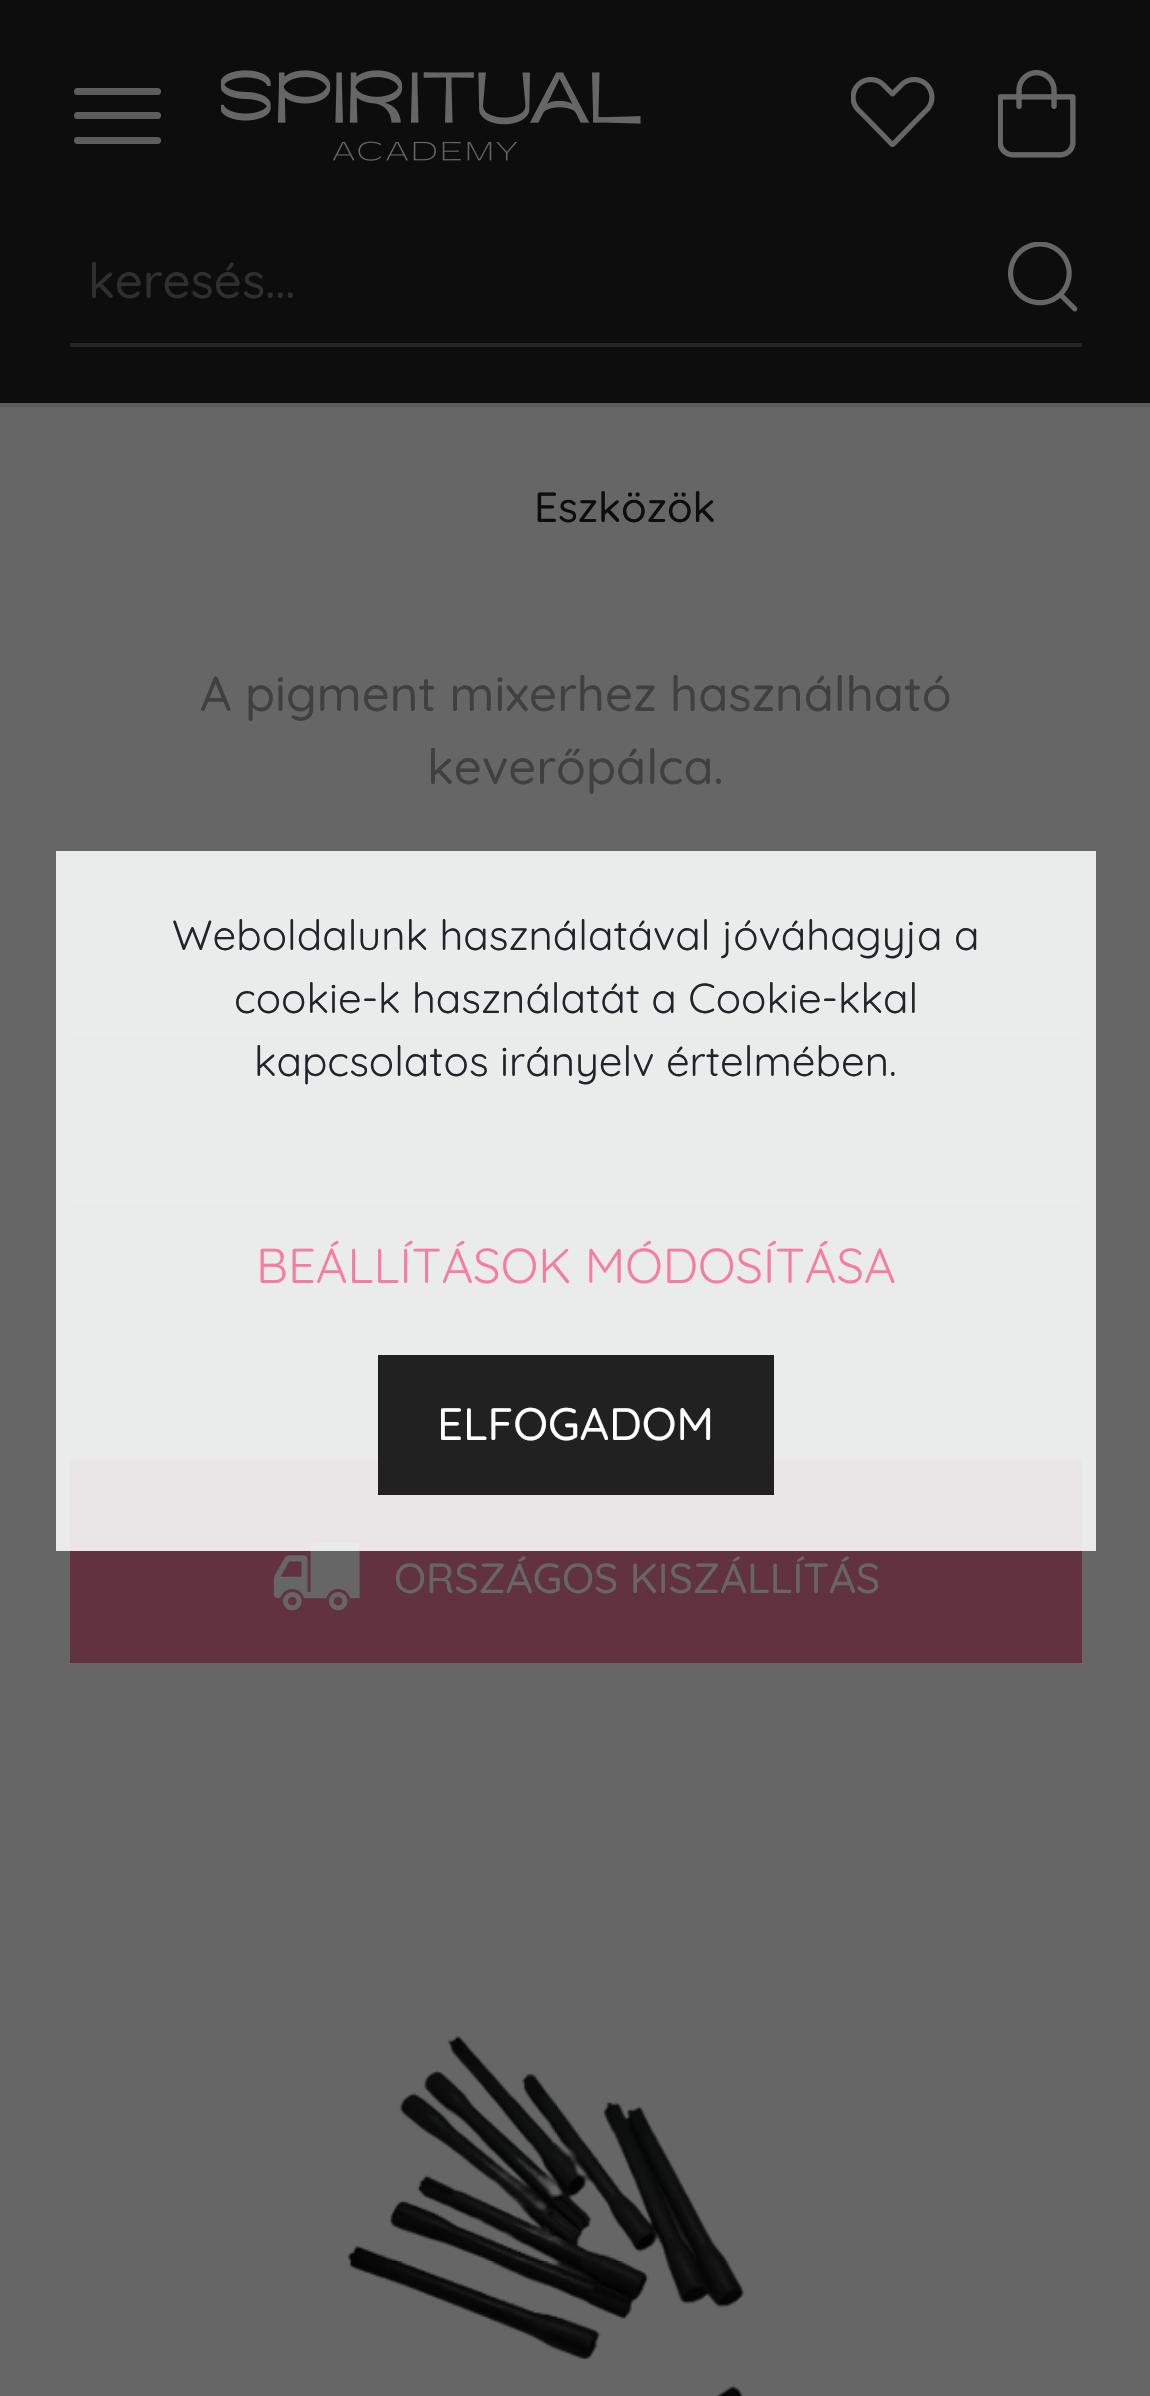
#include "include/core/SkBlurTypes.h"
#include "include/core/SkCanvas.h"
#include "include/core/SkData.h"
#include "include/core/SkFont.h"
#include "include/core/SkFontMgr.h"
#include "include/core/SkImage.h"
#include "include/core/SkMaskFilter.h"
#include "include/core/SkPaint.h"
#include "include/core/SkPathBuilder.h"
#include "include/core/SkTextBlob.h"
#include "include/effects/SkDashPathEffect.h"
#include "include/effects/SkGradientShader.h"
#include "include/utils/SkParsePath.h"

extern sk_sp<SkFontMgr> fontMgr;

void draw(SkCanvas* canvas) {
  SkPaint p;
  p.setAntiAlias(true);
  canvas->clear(SkColorSetRGB(102, 102, 102));
  p.setColor(SkColorSetRGB(13, 13, 13));
  canvas->drawRect(SkRect::MakeLTRB(0, 0, 1150, 403), p);
  p.setColor(SkColorSetRGB(93, 93, 93));
  canvas->drawRoundRect(SkRect::MakeLTRB(74, 88, 161, 95), 3.5f, 3.5f, p);
  canvas->drawRoundRect(SkRect::MakeLTRB(74, 112, 161, 119), 3.5f, 3.5f, p);
  canvas->drawRoundRect(SkRect::MakeLTRB(74, 137, 161, 144), 3.5f, 3.5f, p);
  canvas->drawImageRect(SkImages::DeferredFromEncodedData(SkData::MakeFromFileName("images/1.png")), SkRect::MakeLTRB(221, 70, 641, 161), SkSamplingOptions());
  canvas->drawImageRect(SkImages::DeferredFromEncodedData(SkData::MakeFromFileName("images/2.png")), SkRect::MakeLTRB(851, 77, 935, 147), SkSamplingOptions());
  canvas->drawImageRect(SkImages::DeferredFromEncodedData(SkData::MakeFromFileName("images/3.png")), SkRect::MakeLTRB(998, 70, 1076, 158), SkSamplingOptions());
  p.setColor(SkColorSetRGB(37, 37, 37));
  canvas->drawRect(SkRect::MakeLTRB(70, 343, 1082, 347), p);
  canvas->drawImageRect(SkImages::DeferredFromEncodedData(SkData::MakeFromFileName("images/4.png")), SkRect::MakeLTRB(1008, 242, 1078, 312), SkSamplingOptions());
  p.setColor(SkColorSetRGB(91, 91, 91));
  canvas->drawRect(SkRect::MakeLTRB(0, 403, 1150, 407), p);
  canvas->drawRect(SkRect::MakeLTRB(70, 1036, 1085, 1040), p);
  canvas->drawRect(SkRect::MakeLTRB(70, 1204, 1085, 1208), p);
  p.setColor(SkColorSetRGB(98, 50, 64));
  canvas->drawRect(SkRect::MakeLTRB(70, 1460, 1082, 1663), p);
  canvas->drawImageRect(SkImages::DeferredFromEncodedData(SkData::MakeFromFileName("images/5.png")), SkRect::MakeLTRB(273, 1543, 360, 1611), SkSamplingOptions());
  canvas->drawImageRect(SkImages::DeferredFromEncodedData(SkData::MakeFromFileName("images/6.png")), SkRect::MakeLTRB(348, 2035, 745, 2396), SkSamplingOptions());
  p.setColor(SkColorSetARGB(230, 248, 249, 250));
  canvas->drawRect(SkRect::MakeLTRB(56, 851, 1096, 1551), p);
  p.setColor(SkColorSetRGB(33, 33, 33));
  canvas->drawRect(SkRect::MakeLTRB(378, 1355, 774, 1495), p);
  SkFont font1(fontMgr->matchFamilyStyle("Quicksand", SkFontStyle(500, SkFontStyle::kNormal_Width, SkFontStyle::kUpright_Slant)), 49);
  font1.setSubpixel(true);
  p.setColor(SkColorSetRGB(47, 47, 47));
  canvas->drawString("keresés...", 88, 298, font1, p);
  SkFont font2(fontMgr->matchFamilyStyle("Quicksand", SkFontStyle(500, SkFontStyle::kNormal_Width, SkFontStyle::kUpright_Slant)), 42);
  font2.setSubpixel(true);
  p.setColor(SkColorSetRGB(13, 13, 13));
  canvas->drawString("Eszközök", 534, 522, font2, p);
  p.setColor(SkColorSetRGB(64, 64, 64));
  canvas->drawString("A pigment mixerhez használható", 200, 711, font1, p);
  canvas->drawString("keverőpálca.", 427, 784, font1, p);
  p.setColor(SkColorSetRGB(102, 102, 102));
  canvas->drawString("ORSZÁGOS KISZÁLLÍTÁS", 394, 1593, font2, p);
  SkFont font3(fontMgr->matchFamilyStyle("Quicksand", SkFontStyle::Normal()), 42);
  font3.setSubpixel(true);
  p.setColor(SkColorSetRGB(33, 37, 41));
  canvas->drawString("Weboldalunk használatával jóváhagyja a", 172, 950, font3, p);
  canvas->drawString("cookie-k használatát a Cookie-kkal", 234, 1013, font3, p);
  canvas->drawString("kapcsolatos irányelv értelmében.", 254, 1076, font3, p);
  SkFont font4(fontMgr->matchFamilyStyle("Quicksand", SkFontStyle::Normal()), 49);
  font4.setSubpixel(true);
  p.setColor(SkColorSetRGB(246, 125, 161));
  canvas->drawString("BEÁLLÍTÁSOK MÓDOSÍTÁSA", 256, 1283, font4, p);
  SkFont font5(fontMgr->matchFamilyStyle("Quicksand", SkFontStyle(500, SkFontStyle::kNormal_Width, SkFontStyle::kUpright_Slant)), 45.5f);
  font5.setSubpixel(true);
  p.setColor(SK_ColorWHITE);
  canvas->drawString("ELFOGADOM", 437, 1440, font5, p);
}
